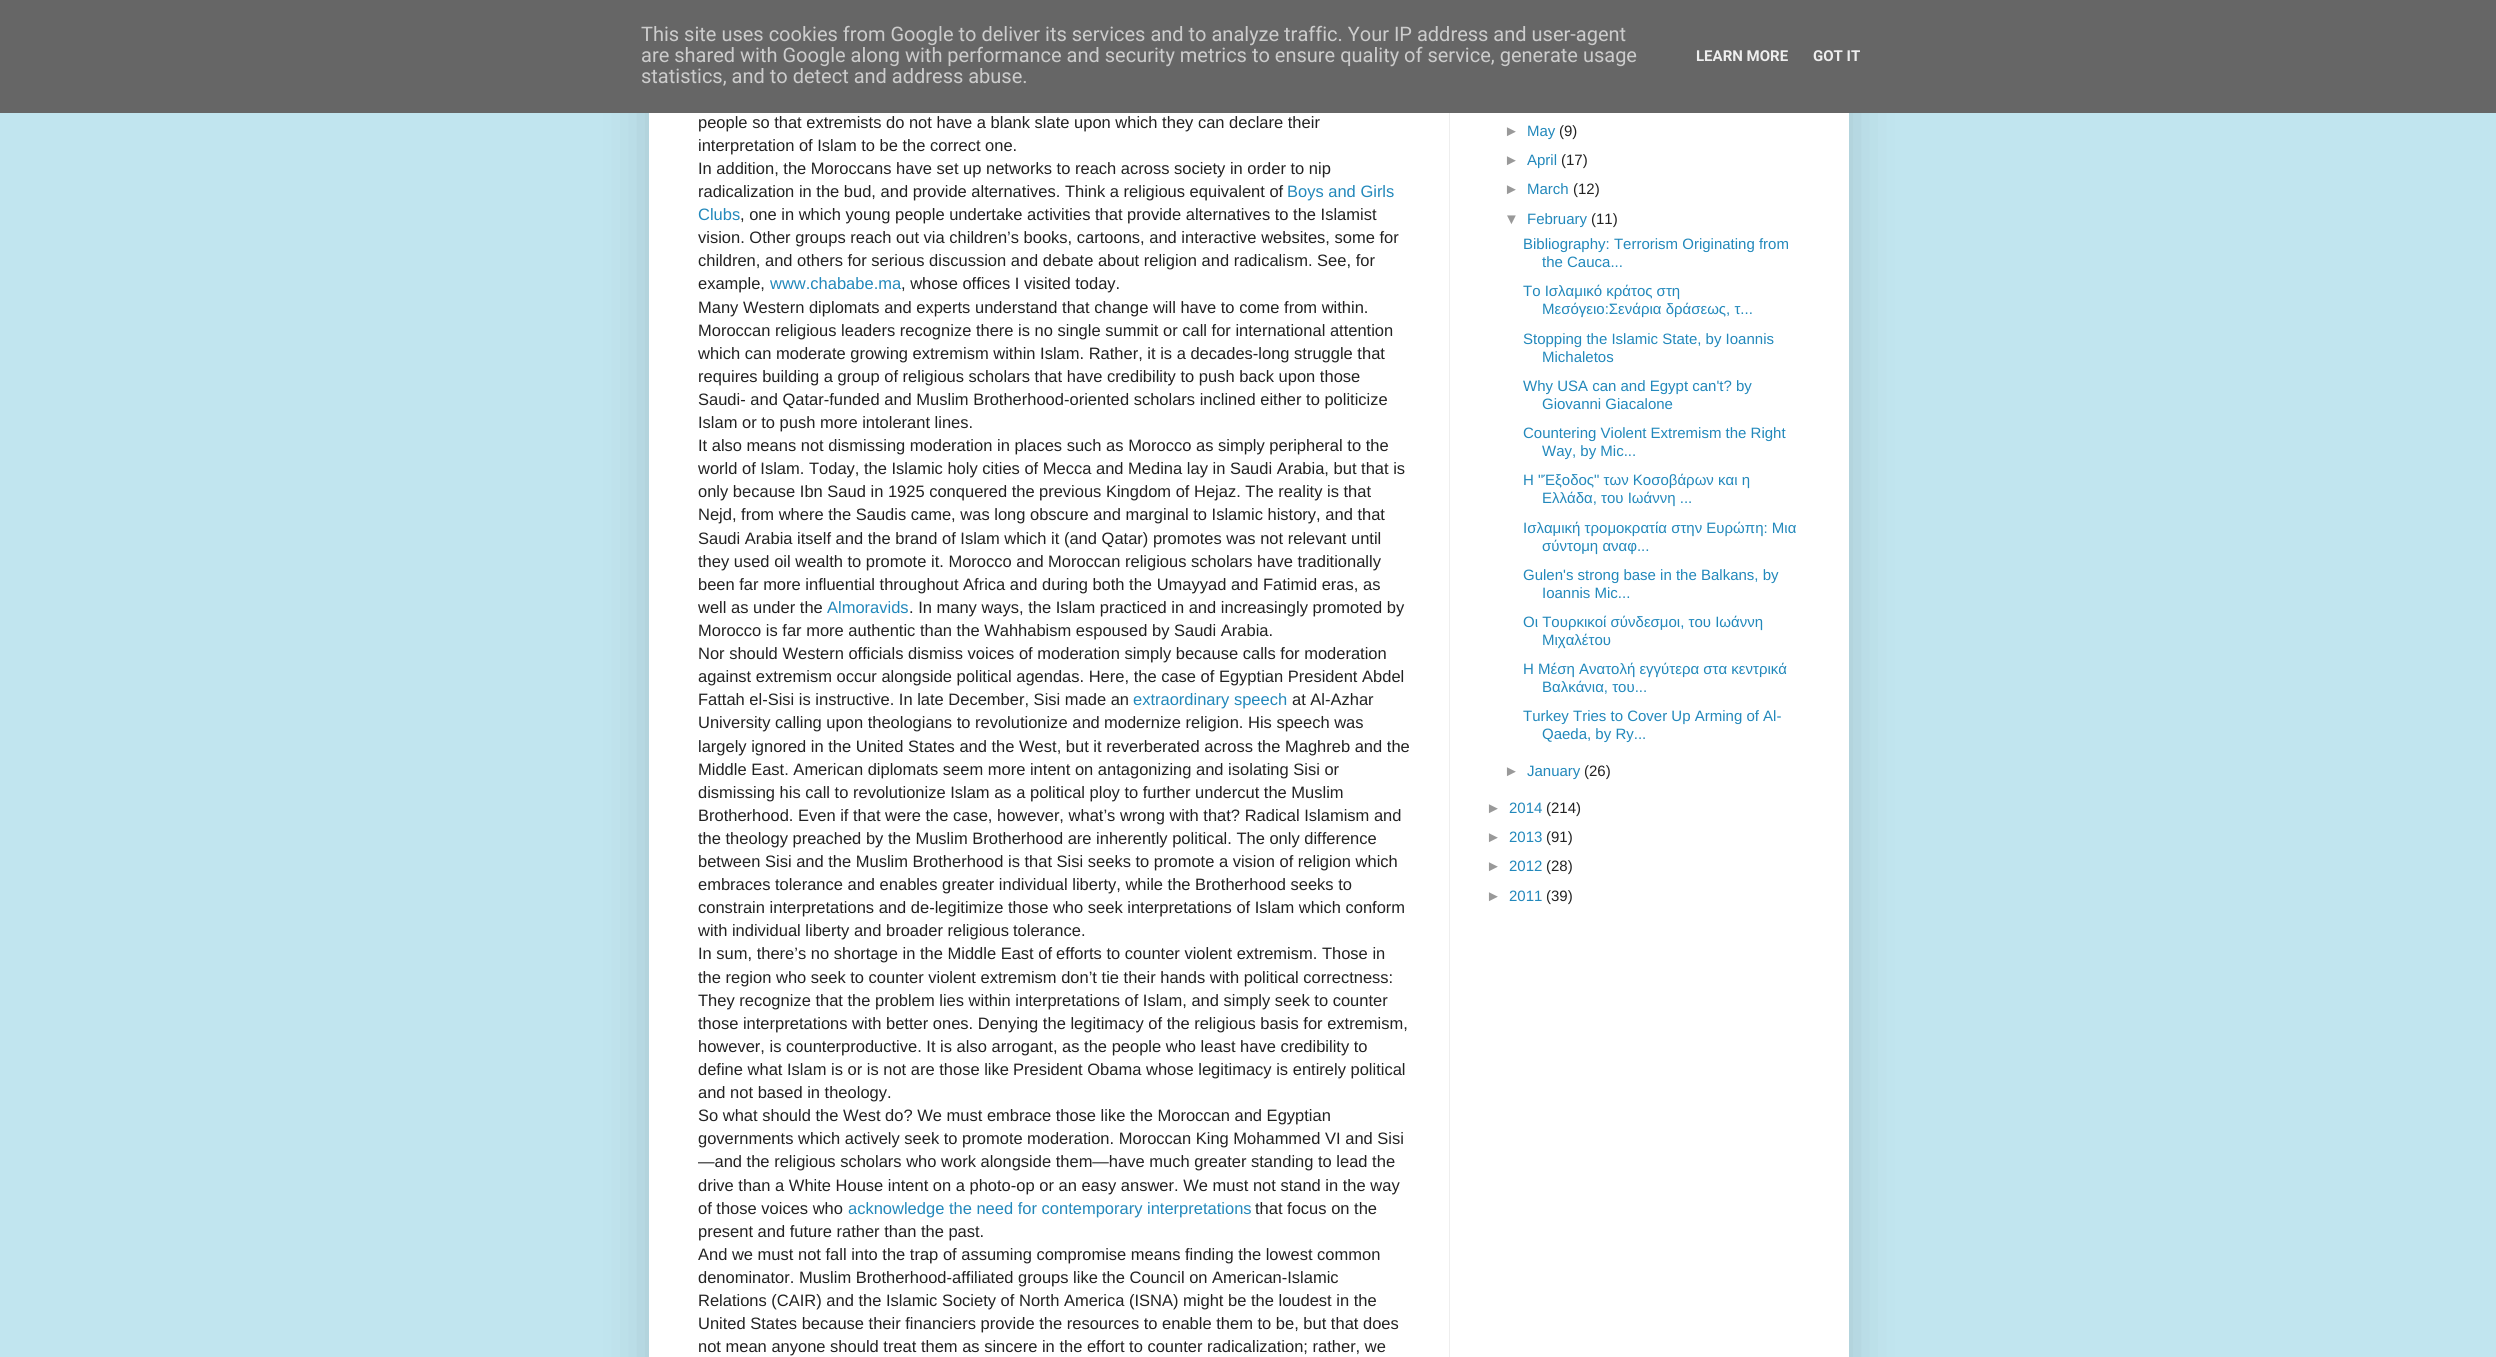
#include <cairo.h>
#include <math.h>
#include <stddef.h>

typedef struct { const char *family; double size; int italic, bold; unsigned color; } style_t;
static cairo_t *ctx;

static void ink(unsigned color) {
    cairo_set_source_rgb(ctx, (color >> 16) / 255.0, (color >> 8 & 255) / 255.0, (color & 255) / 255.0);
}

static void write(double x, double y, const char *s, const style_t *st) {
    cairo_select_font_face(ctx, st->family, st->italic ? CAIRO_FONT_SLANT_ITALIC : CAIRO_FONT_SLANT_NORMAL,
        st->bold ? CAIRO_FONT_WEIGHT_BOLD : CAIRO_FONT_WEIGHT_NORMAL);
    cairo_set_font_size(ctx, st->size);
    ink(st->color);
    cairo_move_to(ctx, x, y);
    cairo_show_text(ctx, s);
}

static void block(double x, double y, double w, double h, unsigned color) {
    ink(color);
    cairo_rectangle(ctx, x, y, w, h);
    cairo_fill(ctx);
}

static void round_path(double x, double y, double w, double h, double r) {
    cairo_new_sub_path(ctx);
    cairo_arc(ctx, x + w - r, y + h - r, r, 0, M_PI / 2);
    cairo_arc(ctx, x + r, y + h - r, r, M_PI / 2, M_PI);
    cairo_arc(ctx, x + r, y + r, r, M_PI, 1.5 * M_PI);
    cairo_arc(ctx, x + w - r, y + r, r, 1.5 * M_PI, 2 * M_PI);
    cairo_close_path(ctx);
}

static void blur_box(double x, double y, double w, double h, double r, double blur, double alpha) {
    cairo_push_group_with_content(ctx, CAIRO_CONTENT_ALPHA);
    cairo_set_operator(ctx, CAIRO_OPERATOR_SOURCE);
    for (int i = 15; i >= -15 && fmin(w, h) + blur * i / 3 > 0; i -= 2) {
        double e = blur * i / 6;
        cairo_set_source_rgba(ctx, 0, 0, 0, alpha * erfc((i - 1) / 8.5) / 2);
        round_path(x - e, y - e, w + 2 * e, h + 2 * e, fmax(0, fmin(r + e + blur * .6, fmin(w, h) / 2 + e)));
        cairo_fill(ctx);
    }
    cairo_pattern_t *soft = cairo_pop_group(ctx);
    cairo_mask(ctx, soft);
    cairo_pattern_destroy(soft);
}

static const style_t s1 = {"Roboto", 20, 0, 0, 0xcccccc};
static const style_t s2 = {"Roboto", 15, 0, 1, 0xeeeeee};
static const style_t s3 = {"Liberation Sans", 16.5, 0, 0, 0x222222};
static const style_t s4 = {"Liberation Sans", 16.5, 0, 0, 0x2288bb};
static const style_t s5 = {"Liberation Sans", 15, 0, 0, 0x999999};
static const style_t s6 = {"Liberation Sans", 15, 0, 0, 0x2288bb};
static const style_t s7 = {"Liberation Sans", 15, 0, 0, 0x222222};

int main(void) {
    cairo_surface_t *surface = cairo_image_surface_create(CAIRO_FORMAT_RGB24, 2496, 1357);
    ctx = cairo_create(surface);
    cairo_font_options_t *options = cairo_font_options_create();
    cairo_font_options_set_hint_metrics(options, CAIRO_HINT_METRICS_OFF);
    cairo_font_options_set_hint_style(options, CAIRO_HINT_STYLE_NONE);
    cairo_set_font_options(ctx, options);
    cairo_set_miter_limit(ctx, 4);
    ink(0xc1e5ef);
    cairo_paint(ctx);
    ink(0x000000);
    blur_box(649, -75, 1200, 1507, 0, 25, 0.15);
    block(0, 0, 2496, 113, 0x666666);
    write(641, 41, "This site uses cookies from Google to deliver its services and to analyze traffic. Your IP address and user-agent", &s1);
    write(641, 62, "are shared with Google along with performance and security metrics to ensure quality of service, generate usage", &s1);
    write(641, 83, "statistics, and to detect and address abuse.", &s1);
    write(1696, 61, "LEARN MORE", &s2);
    write(1813, 61, "GOT IT", &s2);
    block(649, 113, 1200, 1244, 0xffffff);
    block(1449, 113, 1, 1244, 0xeeeeee);
    write(698, 128, "people so that extremists do not have a blank slate upon which they can declare their", &s3);
    write(698, 151, "interpretation of Islam to be the correct one.", &s3);
    write(698, 174, "In addition, the Moroccans have set up networks to reach across society in order to nip", &s3);
    write(698, 197, "radicalization in the bud, and provide alternatives. Think a religious equivalent of", &s3);
    write(1287, 197, "Boys and Girls", &s4);
    write(698, 220, "Clubs", &s4);
    write(740, 220, ", one in which young people undertake activities that provide alternatives to the Islamist", &s3);
    write(698, 243, "vision. Other groups reach out via children’s books, cartoons, and interactive websites, some for", &s3);
    write(698, 266, "children, and others for serious discussion and debate about religion and radicalism. See, for", &s3);
    write(698, 289, "example,", &s3);
    write(770, 289, "www.chababe.ma", &s4);
    write(901, 289, ", whose offices I visited today.", &s3);
    write(698, 313, "Many Western diplomats and experts understand that change will have to come from within.", &s3);
    write(698, 336, "Moroccan religious leaders recognize there is no single summit or call for international attention", &s3);
    write(698, 359, "which can moderate growing extremism within Islam. Rather, it is a decades-long struggle that", &s3);
    write(698, 382, "requires building a group of religious scholars that have credibility to push back upon those", &s3);
    write(698, 405, "Saudi- and Qatar-funded and Muslim Brotherhood-oriented scholars inclined either to politicize", &s3);
    write(698, 428, "Islam or to push more intolerant lines.", &s3);
    write(698, 451, "It also means not dismissing moderation in places such as Morocco as simply peripheral to the", &s3);
    write(698, 474, "world of Islam. Today, the Islamic holy cities of Mecca and Medina lay in Saudi Arabia, but that is", &s3);
    write(698, 497, "only because Ibn Saud in 1925 conquered the", &s3);
    write(1039, 497, "previous Kingdom of Hejaz. The reality is that", &s3);
    write(698, 520, "Nejd, from where the Saudis came, was long obscure and marginal to Islamic history, and that", &s3);
    write(698, 544, "Saudi Arabia itself and the brand of Islam which it (and Qatar) promotes was not relevant until", &s3);
    write(698, 567, "they used oil wealth to promote it. Morocco and", &s3);
    write(1048, 567, "Moroccan religious scholars have traditionally", &s3);
    write(698, 590, "been far more influential throughout Africa and during both the Umayyad and Fatimid eras, as", &s3);
    write(698, 613, "well as under the", &s3);
    write(827, 613, "Almoravids", &s4);
    write(909, 613, ". In many ways, the Islam practiced in and increasingly promoted by", &s3);
    write(698, 636, "Morocco is far more authentic than the Wahhabism espoused by Saudi Arabia.", &s3);
    write(698, 659, "Nor should Western officials dismiss voices of moderation simply because calls for moderation", &s3);
    write(698, 682, "against extremism occur alongside political agendas. Here, the case of Egyptian President Abdel", &s3);
    write(698, 705, "Fattah el-Sisi is instructive. In late December, Sisi made an", &s3);
    write(1133, 705, "extraordinary speech", &s4);
    write(1292, 705, "at Al-Azhar", &s3);
    write(698, 728, "University calling upon theologians to revolutionize and", &s3);
    write(1104, 728, "modernize religion. His speech was", &s3);
    write(698, 752, "largely ignored in the United States and the West, but it reverberated across the Maghreb and the", &s3);
    write(698, 775, "Middle East. American diplomats seem more intent on antagonizing and isolating Sisi or", &s3);
    write(698, 798, "dismissing his call to revolutionize Islam as a political ploy to further undercut the Muslim", &s3);
    write(698, 821, "Brotherhood. Even if that were the case, however, what’s wrong with that? Radical Islamism and", &s3);
    write(698, 844, "the theology preached by the Muslim Brotherhood are inherently political. The only difference", &s3);
    write(698, 867, "between Sisi and the Muslim Brotherhood is that Sisi seeks to promote a vision of religion which", &s3);
    write(698, 890, "embraces tolerance and enables greater individual liberty, while the Brotherhood seeks to", &s3);
    write(698, 913, "constrain interpretations and de-legitimize those who seek interpretations of Islam which conform", &s3);
    write(698, 936, "with individual liberty and broader religious", &s3);
    write(1013, 936, "tolerance.", &s3);
    write(698, 959, "In sum, there’s no shortage in the Middle East of", &s3);
    write(1056, 959, "efforts to counter violent extremism. Those in", &s3);
    write(698, 983, "the region who seek to counter violent extremism don’t tie their hands with political correctness:", &s3);
    write(698, 1006, "They recognize that the problem lies within interpretations of Islam, and simply seek to counter", &s3);
    write(698, 1029, "those interpretations with better ones. Denying the legitimacy of the religious basis for extremism,", &s3);
    write(698, 1052, "however, is counterproductive. It is also arrogant, as the people who least have credibility to", &s3);
    write(698, 1075, "define what Islam is or is not are those like", &s3);
    write(1013, 1075, "President Obama whose legitimacy is entirely political", &s3);
    write(698, 1098, "and not based in theology.", &s3);
    write(698, 1121, "So what should the West do? We must embrace those like the Moroccan and Egyptian", &s3);
    write(698, 1144, "governments which actively seek to promote", &s3);
    write(1027, 1144, "moderation. Moroccan King Mohammed VI and Sisi", &s3);
    write(698, 1167, "—and the religious scholars who work alongside them—have much greater standing to lead the", &s3);
    write(698, 1191, "drive than a White House intent on a photo-op or an easy answer. We must not stand in the way", &s3);
    write(698, 1214, "of those voices who", &s3);
    write(848, 1214, "acknowledge the need for contemporary interpretations", &s4);
    write(1255, 1214, "that focus on the", &s3);
    write(698, 1237, "present and future rather than the past.", &s3);
    write(698, 1260, "And we must not fall into the trap of assuming compromise means finding the lowest common", &s3);
    write(698, 1283, "denominator. Muslim Brotherhood-affiliated groups like", &s3);
    write(1102, 1283, "the Council on American-Islamic", &s3);
    write(698, 1306, "Relations (CAIR) and the Islamic Society of North America (ISNA) might be the loudest in the", &s3);
    write(698, 1329, "United States because their financiers provide the resources to enable them to be, but that does", &s3);
    write(698, 1352, "not mean anyone should treat them as sincere in the effort to counter radicalization; rather, we", &s3);
    write(1504, 136, "►", &s5);
    write(1527, 136, "May", &s6);
    write(1559, 136, "(9)", &s7);
    write(1504, 165, "►", &s5);
    write(1527, 165, "April", &s6);
    write(1561, 165, "(17)", &s7);
    write(1504, 194, "►", &s5);
    write(1527, 194, "March", &s6);
    write(1573, 194, "(12)", &s7);
    write(1504, 224, "▼", &s5);
    write(1527, 224, "February", &s6);
    write(1591, 224, "(11)", &s7);
    write(1523, 249, "Bibliography: Terrorism Originating from", &s6);
    write(1542, 267, "the Cauca...", &s6);
    write(1523, 296, "Το Ισλαμικό κράτος στη", &s6);
    write(1542, 314, "Μεσόγειο:Σενάρια δράσεως, τ...", &s6);
    write(1523, 344, "Stopping the Islamic State, by Ioannis", &s6);
    write(1542, 362, "Michaletos", &s6);
    write(1523, 391, "Why USA can and Egypt can't? by", &s6);
    write(1542, 409, "Giovanni Giacalone", &s6);
    write(1523, 438, "Countering Violent Extremism the Right", &s6);
    write(1542, 456, "Way, by Mic...", &s6);
    write(1523, 485, "Η \"Έξοδος\" των Κοσοβάρων και η", &s6);
    write(1542, 503, "Ελλάδα, του Ιωάννη ...", &s6);
    write(1523, 533, "Ισλαμική τρομοκρατία στην Ευρώπη: Mια", &s6);
    write(1542, 551, "σύντομη αναφ...", &s6);
    write(1523, 580, "Gulen's strong base in the Balkans, by", &s6);
    write(1542, 598, "Ioannis Mic...", &s6);
    write(1523, 627, "Οι Τουρκικοί σύνδεσμοι, του Ιωάννη", &s6);
    write(1542, 645, "Μιχαλέτου", &s6);
    write(1523, 674, "Η Μέση Ανατολή εγγύτερα στα κεντρικά", &s6);
    write(1542, 692, "Βαλκάνια, του...", &s6);
    write(1523, 721, "Turkey Tries to Cover Up Arming of Al-", &s6);
    write(1542, 739, "Qaeda, by Ry...", &s6);
    write(1504, 776, "►", &s5);
    write(1527, 776, "January", &s6);
    write(1584, 776, "(26)", &s7);
    write(1486, 813, "►", &s5);
    write(1509, 813, "2014", &s6);
    write(1546, 813, "(214)", &s7);
    write(1486, 842, "►", &s5);
    write(1509, 842, "2013", &s6);
    write(1546, 842, "(91)", &s7);
    write(1486, 871, "►", &s5);
    write(1509, 871, "2012", &s6);
    write(1546, 871, "(28)", &s7);
    write(1486, 901, "►", &s5);
    write(1509, 901, "2011", &s6);
    write(1546, 901, "(39)", &s7);
    cairo_surface_write_to_png(surface, "screenshot.png");
    cairo_font_options_destroy(options);
    cairo_destroy(ctx);
    cairo_surface_destroy(surface);
    return 0;
}
